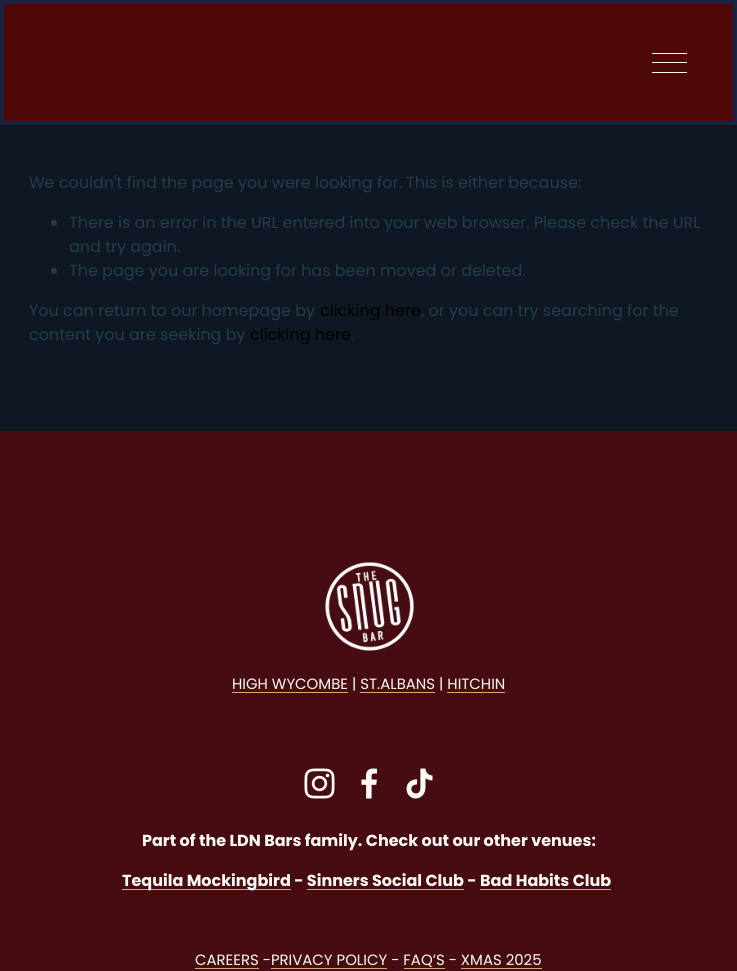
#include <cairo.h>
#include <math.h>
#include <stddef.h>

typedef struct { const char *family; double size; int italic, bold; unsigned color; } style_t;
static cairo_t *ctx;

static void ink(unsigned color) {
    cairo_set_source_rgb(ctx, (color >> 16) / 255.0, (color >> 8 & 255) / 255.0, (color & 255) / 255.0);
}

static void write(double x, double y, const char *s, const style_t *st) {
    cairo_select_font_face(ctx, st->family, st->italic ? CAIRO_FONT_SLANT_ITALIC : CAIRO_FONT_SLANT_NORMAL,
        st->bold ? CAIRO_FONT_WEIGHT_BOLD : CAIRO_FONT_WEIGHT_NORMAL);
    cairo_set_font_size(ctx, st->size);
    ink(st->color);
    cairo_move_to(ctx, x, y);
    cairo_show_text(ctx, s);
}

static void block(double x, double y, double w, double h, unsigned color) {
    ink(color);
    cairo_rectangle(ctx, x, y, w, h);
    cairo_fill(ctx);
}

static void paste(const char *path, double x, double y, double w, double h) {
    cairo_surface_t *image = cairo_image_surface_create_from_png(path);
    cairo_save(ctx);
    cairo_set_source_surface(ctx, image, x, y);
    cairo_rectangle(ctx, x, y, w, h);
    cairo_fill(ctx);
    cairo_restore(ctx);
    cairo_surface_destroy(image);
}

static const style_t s1 = {"Poppins", 16, 0, 0, 0x213c4e};
static const style_t s2 = {"Poppins", 16, 0, 0, 0x000000};
static const style_t s3 = {"Poppins", 14.9, 0, 0, 0xfcfbf7};
static const style_t s4 = {"Poppins", 16, 0, 1, 0xfcfbf7};

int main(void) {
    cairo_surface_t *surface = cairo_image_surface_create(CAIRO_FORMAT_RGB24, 737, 971);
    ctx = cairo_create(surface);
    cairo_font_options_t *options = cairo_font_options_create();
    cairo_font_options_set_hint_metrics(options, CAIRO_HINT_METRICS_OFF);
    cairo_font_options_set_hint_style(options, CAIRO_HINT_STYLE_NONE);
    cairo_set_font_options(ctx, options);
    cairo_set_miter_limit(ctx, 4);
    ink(0x0f1723);
    cairo_paint(ctx);
    ink(0x4e0808);
    cairo_rectangle(ctx, 2, 2, 733, 121);
    cairo_fill_preserve(ctx);
    ink(0x182241);
    cairo_set_line_width(ctx, 4);
    cairo_stroke(ctx);
    block(652, 53, 35, 1, 0xfefcfb);
    block(652, 62, 35, 1, 0xfefcfb);
    block(652, 72, 35, 1, 0xfefcfb);
    write(29, 188, "We couldn't find the page you were looking for. This is either because:", &s1);
    cairo_new_path(ctx);
    cairo_arc(ctx, 54, 223, 3, 0, 2 * M_PI);
    cairo_fill(ctx);
    write(69, 228, "There is an error in the URL entered into your web browser. Please check the URL", &s1);
    write(69, 252, "and try again.", &s1);
    cairo_new_path(ctx);
    cairo_arc(ctx, 54, 271, 3, 0, 2 * M_PI);
    cairo_fill(ctx);
    write(69, 276, "The page you are looking for has been moved or deleted.", &s1);
    write(29, 316, "You can return to our homepage by", &s1);
    write(320, 316, "clicking here", &s2);
    write(421, 316, ", or you can try searching for the", &s1);
    write(29, 340, "content you are seeking by", &s1);
    write(250, 340, "clicking here", &s2);
    write(351, 340, ".", &s1);
    block(0, 431, 737, 540, 0x470c11);
    paste("pic1.png", 325, 562, 89, 89);
    write(232, 689, "HIGH WYCOMBE | ST.ALBANS | HITCHIN", &s3);
    block(232, 692, 116, 1, 0xdea868);
    block(360, 692, 75, 1, 0xdea868);
    block(447, 692, 58, 1, 0xdea868);
    paste("pic2.png", 304, 768, 31, 31);
    paste("pic3.png", 361, 768, 16, 31);
    paste("pic4.png", 406, 768, 27, 31);
    write(142, 846, "Part of the LDN Bars family. Check out our other venues:", &s4);
    block(122, 889, 169, 1, 0xdea868);
    write(122, 886, "Tequila Mockingbird - Sinners Social Club - Bad Habits Club", &s4);
    block(307, 889, 157, 1, 0xdea868);
    block(480, 889, 131, 1, 0xdea868);
    write(195, 965, "CAREERS -PRIVACY POLICY - FAQ’S - XMAS 2025", &s3);
    block(195, 968, 64, 1, 0xdea868);
    block(271, 968, 116, 1, 0xdea868);
    block(404, 968, 41, 1, 0xdea868);
    block(461, 968, 81, 1, 0xdea868);
    cairo_surface_write_to_png(surface, "screenshot.png");
    cairo_font_options_destroy(options);
    cairo_destroy(ctx);
    cairo_surface_destroy(surface);
    return 0;
}
